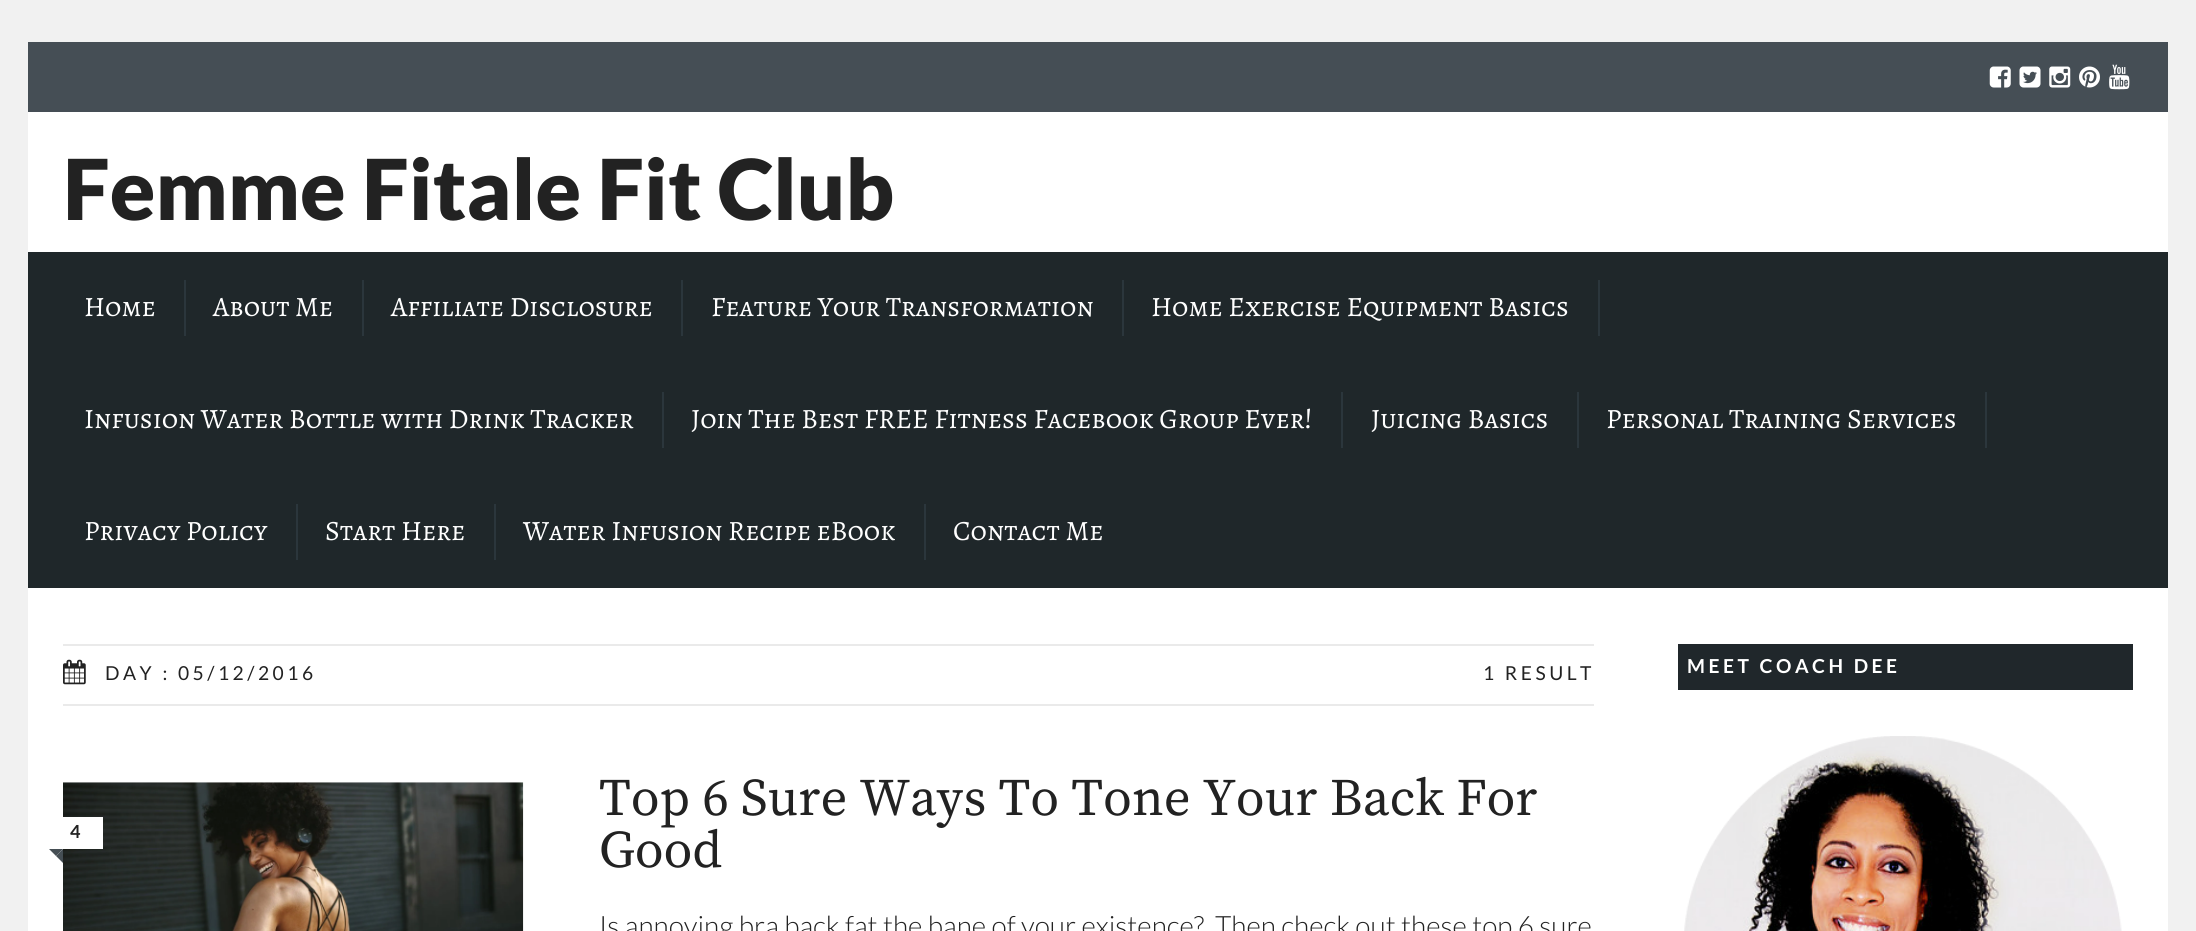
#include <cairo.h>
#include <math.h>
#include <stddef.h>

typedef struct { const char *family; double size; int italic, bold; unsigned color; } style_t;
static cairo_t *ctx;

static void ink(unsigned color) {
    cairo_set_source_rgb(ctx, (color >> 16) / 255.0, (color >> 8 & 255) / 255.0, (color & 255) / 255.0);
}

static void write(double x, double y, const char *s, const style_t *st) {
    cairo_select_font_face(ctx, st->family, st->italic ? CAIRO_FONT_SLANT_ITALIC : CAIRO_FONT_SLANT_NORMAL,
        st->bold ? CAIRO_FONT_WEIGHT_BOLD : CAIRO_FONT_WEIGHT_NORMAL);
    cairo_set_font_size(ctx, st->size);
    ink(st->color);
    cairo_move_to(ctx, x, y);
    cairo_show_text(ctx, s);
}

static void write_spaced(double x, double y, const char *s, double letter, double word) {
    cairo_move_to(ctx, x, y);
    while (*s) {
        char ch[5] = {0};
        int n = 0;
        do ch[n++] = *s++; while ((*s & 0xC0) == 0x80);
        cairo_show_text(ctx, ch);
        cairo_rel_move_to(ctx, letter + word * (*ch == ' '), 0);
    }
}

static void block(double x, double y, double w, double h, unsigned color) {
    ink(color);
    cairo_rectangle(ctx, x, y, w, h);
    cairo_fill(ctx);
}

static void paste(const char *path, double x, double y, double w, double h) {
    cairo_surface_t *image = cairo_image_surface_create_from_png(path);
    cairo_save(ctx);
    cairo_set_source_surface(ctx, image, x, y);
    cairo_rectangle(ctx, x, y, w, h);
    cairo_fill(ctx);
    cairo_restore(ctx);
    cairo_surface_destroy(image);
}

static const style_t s1 = {"Lato Black", 84, 0, 0, 0x222222};
static const style_t s2 = {"Alegreya SC", 28, 0, 0, 0xffffff};
static const style_t s3 = {"Lato", 18, 0, 1, 0x222222};
static const style_t s4 = {"Source Serif Pro", 52.5, 0, 0, 0x222222};
static const style_t s5 = {"Lato Light", 28, 0, 0, 0x222222};

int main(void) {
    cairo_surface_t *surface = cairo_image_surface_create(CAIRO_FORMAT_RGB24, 2196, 931);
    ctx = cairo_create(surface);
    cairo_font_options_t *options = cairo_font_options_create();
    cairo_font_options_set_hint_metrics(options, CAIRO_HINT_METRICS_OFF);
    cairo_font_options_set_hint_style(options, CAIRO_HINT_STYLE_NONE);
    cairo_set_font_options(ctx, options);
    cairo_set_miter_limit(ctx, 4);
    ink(0xf1f1f1);
    cairo_paint(ctx);
    block(28, 42, 2140, 70, 0x454e55);
    paste("pic1.png", 1989, 66, 22, 22);
    paste("pic2.png", 2019, 66, 22, 22);
    paste("pic3.png", 2049, 66, 22, 22);
    paste("pic4.png", 2079, 66, 21, 22);
    paste("pic5.png", 2109, 64, 21, 26);
    block(28, 112, 2140, 140, 0xffffff);
    write(63, 220, "Femme Fitale Fit Club", &s1);
    block(28, 252, 2140, 336, 0x1f272a);
    block(184, 280, 2, 56, 0x2b363c);
    write(84, 316, "Home", &s2);
    block(362, 280, 2, 56, 0x2b363c);
    write(213, 316, "About Me", &s2);
    block(681, 280, 2, 56, 0x2b363c);
    write(391, 316, "Affiliate Disclosure", &s2);
    block(1122, 280, 2, 56, 0x2b363c);
    write(711, 316, "Feature Your Transformation", &s2);
    block(1598, 280, 2, 56, 0x2b363c);
    write(1151, 316, "Home Exercise Equipment Basics", &s2);
    block(662, 392, 2, 56, 0x2b363c);
    write(84, 428, "Infusion Water Bottle with Drink Tracker", &s2);
    block(1341, 392, 2, 56, 0x2b363c);
    write(691, 428, "Join The Best FREE Fitness Facebook Group Ever!", &s2);
    block(1577, 392, 2, 56, 0x2b363c);
    write(1371, 428, "Juicing Basics", &s2);
    block(1985, 392, 2, 56, 0x2b363c);
    write(1606, 428, "Personal Training Services", &s2);
    block(296, 504, 2, 56, 0x2b363c);
    write(84, 540, "Privacy Policy", &s2);
    block(494, 504, 2, 56, 0x2b363c);
    write(325, 540, "Start Here", &s2);
    block(924, 504, 2, 56, 0x2b363c);
    write(523, 540, "Water Infusion Recipe eBook", &s2);
    write(953, 540, "Contact Me", &s2);
    block(28, 588, 2140, 343, 0xffffff);
    block(63, 644, 1531, 2, 0xeaeaea);
    block(63, 704, 1531, 2, 0xeaeaea);
    paste("pic6.png", 63, 659, 23, 26);
    cairo_select_font_face(ctx, "Lato", CAIRO_FONT_SLANT_NORMAL, CAIRO_FONT_WEIGHT_NORMAL);
    cairo_set_font_size(ctx, 19.25);
    ink(0x222222);
    write_spaced(105, 680, "DAY : 05/12/2016", 3.5, 0);
    write_spaced(1483, 680, "1 RESULT", 3.5, 0);
    paste("pic7.png", 63, 782, 461, 149);
    block(63, 817, 40, 32, 0xffffff);
    write(70, 838, "4", &s3);
    ink(0x454e54);
    cairo_new_path(ctx);
    cairo_move_to(ctx, 49, 849);
    cairo_line_to(ctx, 63, 849);
    cairo_line_to(ctx, 56, 856);
    cairo_close_path(ctx);
    cairo_fill(ctx);
    cairo_new_path(ctx);
    cairo_move_to(ctx, 63, 849);
    cairo_line_to(ctx, 63, 863);
    cairo_line_to(ctx, 56, 856);
    cairo_close_path(ctx);
    cairo_fill(ctx);
    write(599, 815, "Top 6 Sure Ways To Tone Your Back For", &s4);
    write(599, 867, "Good", &s4);
    write(599, 936, "Is annoying bra back fat the bane of your existence?  Then check out these top 6 sure", &s5);
    block(1678, 644, 455, 46, 0x20272b);
    cairo_select_font_face(ctx, "Lato", CAIRO_FONT_SLANT_NORMAL, CAIRO_FONT_WEIGHT_BOLD);
    cairo_set_font_size(ctx, 19.25);
    ink(0xffffff);
    write_spaced(1687, 673, "MEET COACH DEE", 3.5, 0);
    paste("pic8.png", 1684, 736, 438, 195);
    cairo_surface_write_to_png(surface, "screenshot.png");
    cairo_font_options_destroy(options);
    cairo_destroy(ctx);
    cairo_surface_destroy(surface);
    return 0;
}
